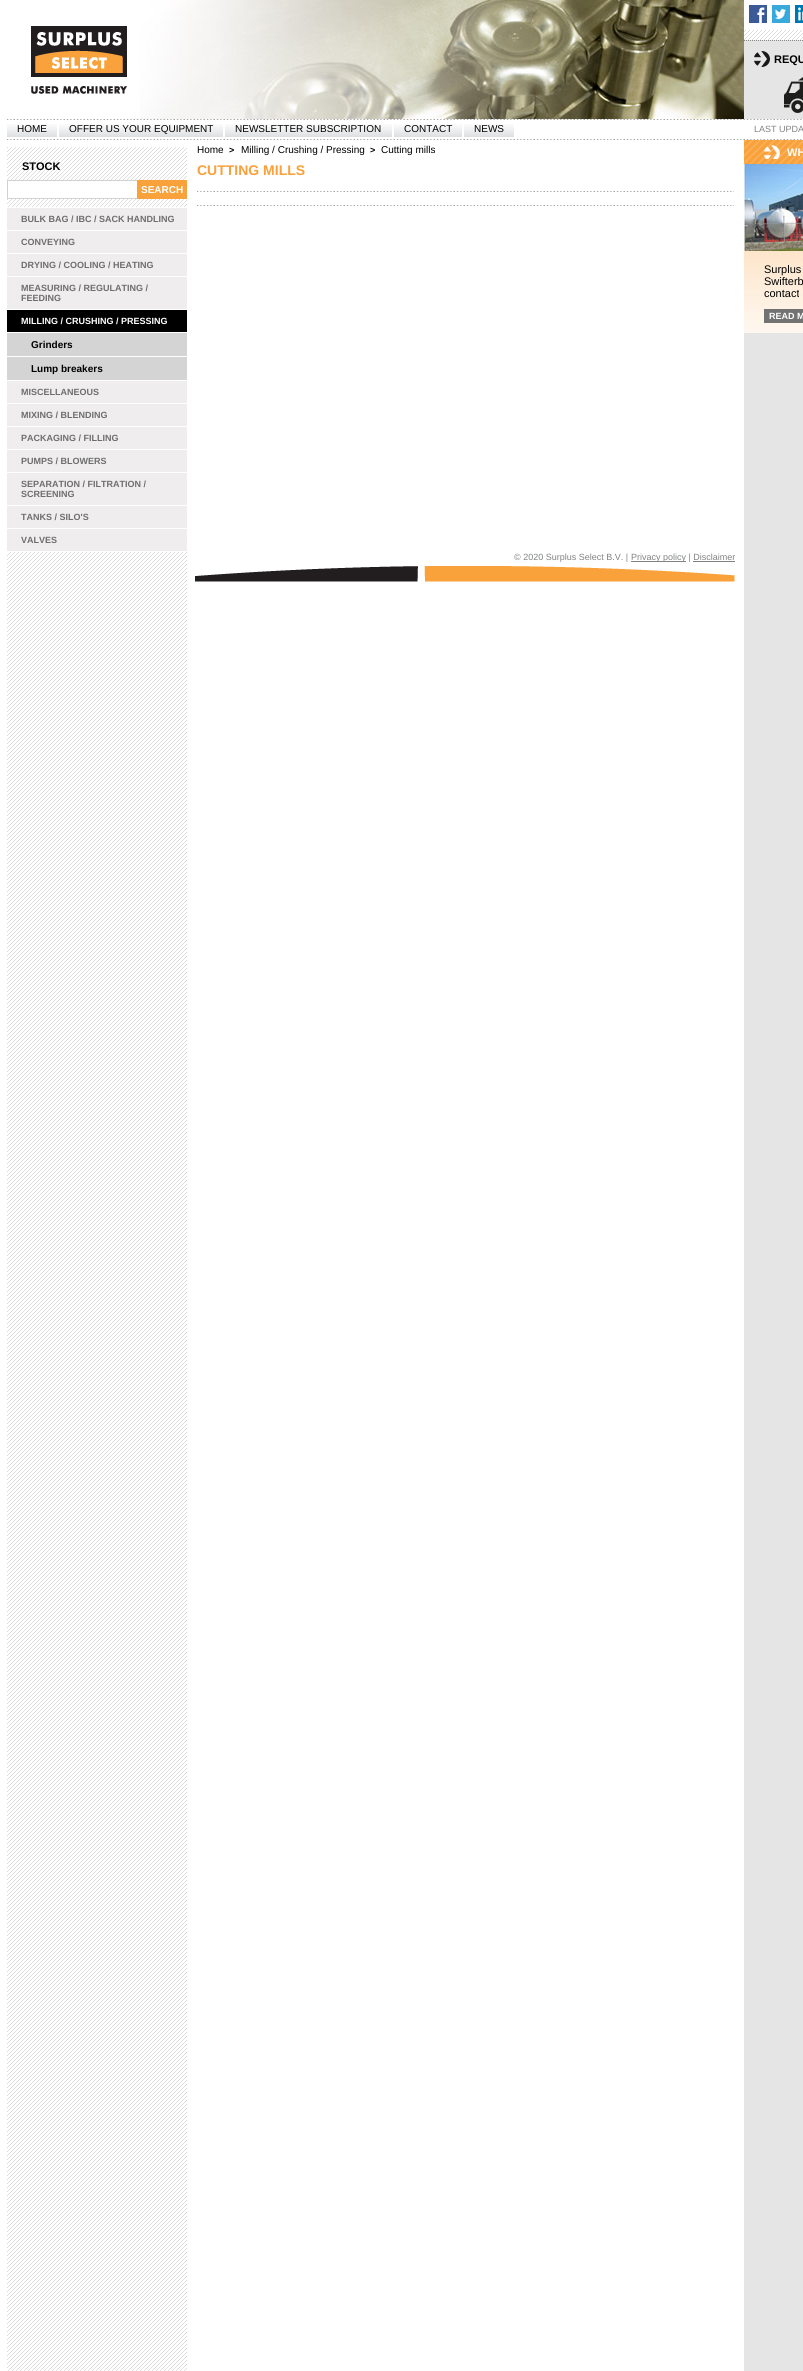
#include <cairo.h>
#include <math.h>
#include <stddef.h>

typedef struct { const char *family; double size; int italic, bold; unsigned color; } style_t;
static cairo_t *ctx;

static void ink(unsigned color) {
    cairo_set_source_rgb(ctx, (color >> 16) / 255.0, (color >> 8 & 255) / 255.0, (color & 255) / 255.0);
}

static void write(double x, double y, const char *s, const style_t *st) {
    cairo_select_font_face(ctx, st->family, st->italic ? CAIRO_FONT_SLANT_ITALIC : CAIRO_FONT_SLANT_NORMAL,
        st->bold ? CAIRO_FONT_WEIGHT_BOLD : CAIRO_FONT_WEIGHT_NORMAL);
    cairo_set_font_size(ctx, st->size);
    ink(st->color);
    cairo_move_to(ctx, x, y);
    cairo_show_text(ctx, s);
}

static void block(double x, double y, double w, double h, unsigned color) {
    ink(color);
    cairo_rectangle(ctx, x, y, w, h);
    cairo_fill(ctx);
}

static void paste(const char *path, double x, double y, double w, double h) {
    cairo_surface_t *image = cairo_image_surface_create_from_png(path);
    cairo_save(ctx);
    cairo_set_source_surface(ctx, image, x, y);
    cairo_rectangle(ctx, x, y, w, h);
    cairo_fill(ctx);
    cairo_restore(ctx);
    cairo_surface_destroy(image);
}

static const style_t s1 = {"Liberation Sans", 11, 0, 1, 0x000000};
static const style_t s2 = {"Liberation Sans", 10, 0, 0, 0x000000};
static const style_t s3 = {"Liberation Sans", 9, 0, 0, 0x808284};
static const style_t s4 = {"Liberation Sans", 10, 0, 1, 0xffffff};
static const style_t s5 = {"Liberation Sans", 9, 0, 1, 0x6e6e6e};
static const style_t s6 = {"Liberation Sans", 9, 0, 1, 0xffffff};
static const style_t s7 = {"Liberation Sans", 10, 0, 1, 0x000000};
static const style_t s8 = {"Liberation Sans", 9, 0, 1, 0x000000};
static const style_t s9 = {"Liberation Sans", 14, 0, 1, 0xf9a13b};
static const style_t s10 = {"Liberation Sans", 11, 0, 1, 0xffffff};
static const style_t s11 = {"Liberation Sans", 11, 0, 0, 0x000000};

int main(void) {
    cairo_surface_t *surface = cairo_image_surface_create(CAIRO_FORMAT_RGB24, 803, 2371);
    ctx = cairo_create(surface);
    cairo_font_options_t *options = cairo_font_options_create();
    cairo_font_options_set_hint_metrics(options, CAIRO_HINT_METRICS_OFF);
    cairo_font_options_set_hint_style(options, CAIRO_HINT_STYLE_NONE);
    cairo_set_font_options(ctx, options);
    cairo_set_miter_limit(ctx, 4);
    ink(0xffffff);
    cairo_paint(ctx);
    paste("pic1.png", 7, 140, 796, 2231);
    paste("pic2.png", 128, 0, 616, 119);
    paste("pic3.png", 31, 26, 96, 68);
    paste("pic4.png", 744, 30, 59, 10);
    paste("pic5.png", 749, 5, 18, 18);
    paste("pic6.png", 772, 5, 18, 18);
    paste("pic7.png", 795, 5, 8, 18);
    block(744, 40, 59, 79, 0xe5e5e5);
    cairo_new_path(ctx);
    cairo_move_to(ctx, 744, 40.5);
    cairo_line_to(ctx, 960, 40.5);
    ink(0x898787);
    cairo_set_line_width(ctx, 1);
    cairo_set_dash(ctx, (double[]){1, 1}, 2, 0);
    cairo_stroke(ctx);
    paste("pic8.png", 754, 51, 16, 16);
    write(774, 63, "REQU", &s1);
    paste("pic9.png", 784, 77, 19, 36);
    paste("pic10.png", 7, 119, 795, 1);
    paste("pic11.png", 7, 124, 50, 13);
    write(17, 132, "HOME", &s2);
    paste("pic12.png", 59, 124, 164, 13);
    write(69, 132, "OFFER US YOUR EQUIPMENT", &s2);
    paste("pic13.png", 225, 124, 167, 13);
    write(235, 132, "NEWSLETTER SUBSCRIPTION", &s2);
    paste("pic14.png", 394, 124, 68, 13);
    write(404, 132, "CONTACT", &s2);
    paste("pic11.png", 464, 124, 50, 13);
    write(474, 132, "NEWS", &s2);
    write(754, 132, "LAST UPDA", &s3);
    paste("pic15.png", 7, 139, 796, 1);
    block(7, 140, 180, 7, 0xffffff);
    write(22, 170, "STOCK", &s1);
    block(8, 181, 129, 17, 0xffffff);
    cairo_rectangle(ctx, 7.5, 180.5, 173, 18);
    ink(0xd1d1d1);
    cairo_set_dash(ctx, NULL, 0, 0);
    cairo_stroke(ctx);
    block(137, 180, 50, 19, 0xf9a13b);
    write(141, 193, "SEARCH", &s4);
    block(7, 551, 180, 1, 0xffffff);
    block(7, 207, 180, 1, 0xffffff);
    block(7, 208, 180, 22, 0xefeded);
    write(21, 222, "BULK BAG / IBC / SACK HANDLING", &s5);
    block(7, 230, 180, 1, 0xffffff);
    block(7, 231, 180, 22, 0xefeded);
    write(21, 245, "CONVEYING", &s5);
    block(7, 253, 180, 1, 0xffffff);
    block(7, 254, 180, 22, 0xefeded);
    write(21, 268, "DRYING / COOLING / HEATING", &s5);
    block(7, 276, 180, 1, 0xffffff);
    block(7, 277, 180, 32, 0xefeded);
    write(21, 291, "MEASURING / REGULATING /", &s5);
    write(21, 301, "FEEDING", &s5);
    block(7, 309, 180, 1, 0xffffff);
    block(7, 310, 180, 22, 0x000000);
    write(21, 324, "MILLING / CRUSHING / PRESSING", &s6);
    block(7, 332, 180, 1, 0xffffff);
    block(7, 333, 180, 23, 0xd5d4d4);
    write(31, 348, "Grinders", &s7);
    block(7, 356, 180, 1, 0xffffff);
    block(7, 357, 180, 23, 0xd5d4d4);
    write(31, 372, "Lump breakers", &s7);
    block(7, 380, 180, 1, 0xffffff);
    block(7, 381, 180, 22, 0xefeded);
    write(21, 395, "MISCELLANEOUS", &s5);
    block(7, 403, 180, 1, 0xffffff);
    block(7, 404, 180, 22, 0xefeded);
    write(21, 418, "MIXING / BLENDING", &s5);
    block(7, 426, 180, 1, 0xffffff);
    block(7, 427, 180, 22, 0xefeded);
    write(21, 441, "PACKAGING / FILLING", &s5);
    block(7, 449, 180, 1, 0xffffff);
    block(7, 450, 180, 22, 0xefeded);
    write(21, 464, "PUMPS / BLOWERS", &s5);
    block(7, 472, 180, 1, 0xffffff);
    block(7, 473, 180, 32, 0xefeded);
    write(21, 487, "SEPARATION / FILTRATION /", &s5);
    write(21, 497, "SCREENING", &s5);
    block(7, 505, 180, 1, 0xffffff);
    block(7, 506, 180, 22, 0xefeded);
    write(21, 520, "TANKS / SILO'S", &s5);
    block(7, 528, 180, 1, 0xffffff);
    block(7, 529, 180, 22, 0xefeded);
    write(21, 543, "VALVES", &s5);
    write(197, 153, "Home", &s2);
    write(229, 153, ">", &s8);
    write(241, 153, "Milling / Crushing / Pressing", &s2);
    write(370, 153, ">", &s8);
    write(381, 153, "Cutting mills", &s2);
    write(197, 175, "CUTTING MILLS", &s9);
    paste("pic16.png", 197, 191, 537, 1);
    paste("pic16.png", 197, 205, 537, 1);
    paste("pic17.png", 744, 251, 59, 82);
    paste("pic18.png", 744, 140, 59, 24);
    paste("pic19.png", 764, 145, 16, 14);
    write(787, 156, "WH", &s10);
    paste("pic20.png", 744, 164, 59, 87);
    write(764, 273, "Surplus", &s11);
    write(764, 285, "Swifterb", &s11);
    write(764, 297, "contact", &s11);
    block(764, 309, 39, 14, 0x727272);
    write(769, 319, "READ M", &s6);
    paste("pic21.png", 195, 566, 540, 16);
    write(514, 560, "© 2020 Surplus Select B.V. |", &s3);
    block(631, 561, 55, 1, 0x808284);
    write(631, 560, "Privacy policy | Disclaimer", &s3);
    block(693, 561, 42, 1, 0x808284);
    cairo_surface_write_to_png(surface, "screenshot.png");
    cairo_font_options_destroy(options);
    cairo_destroy(ctx);
    cairo_surface_destroy(surface);
    return 0;
}
